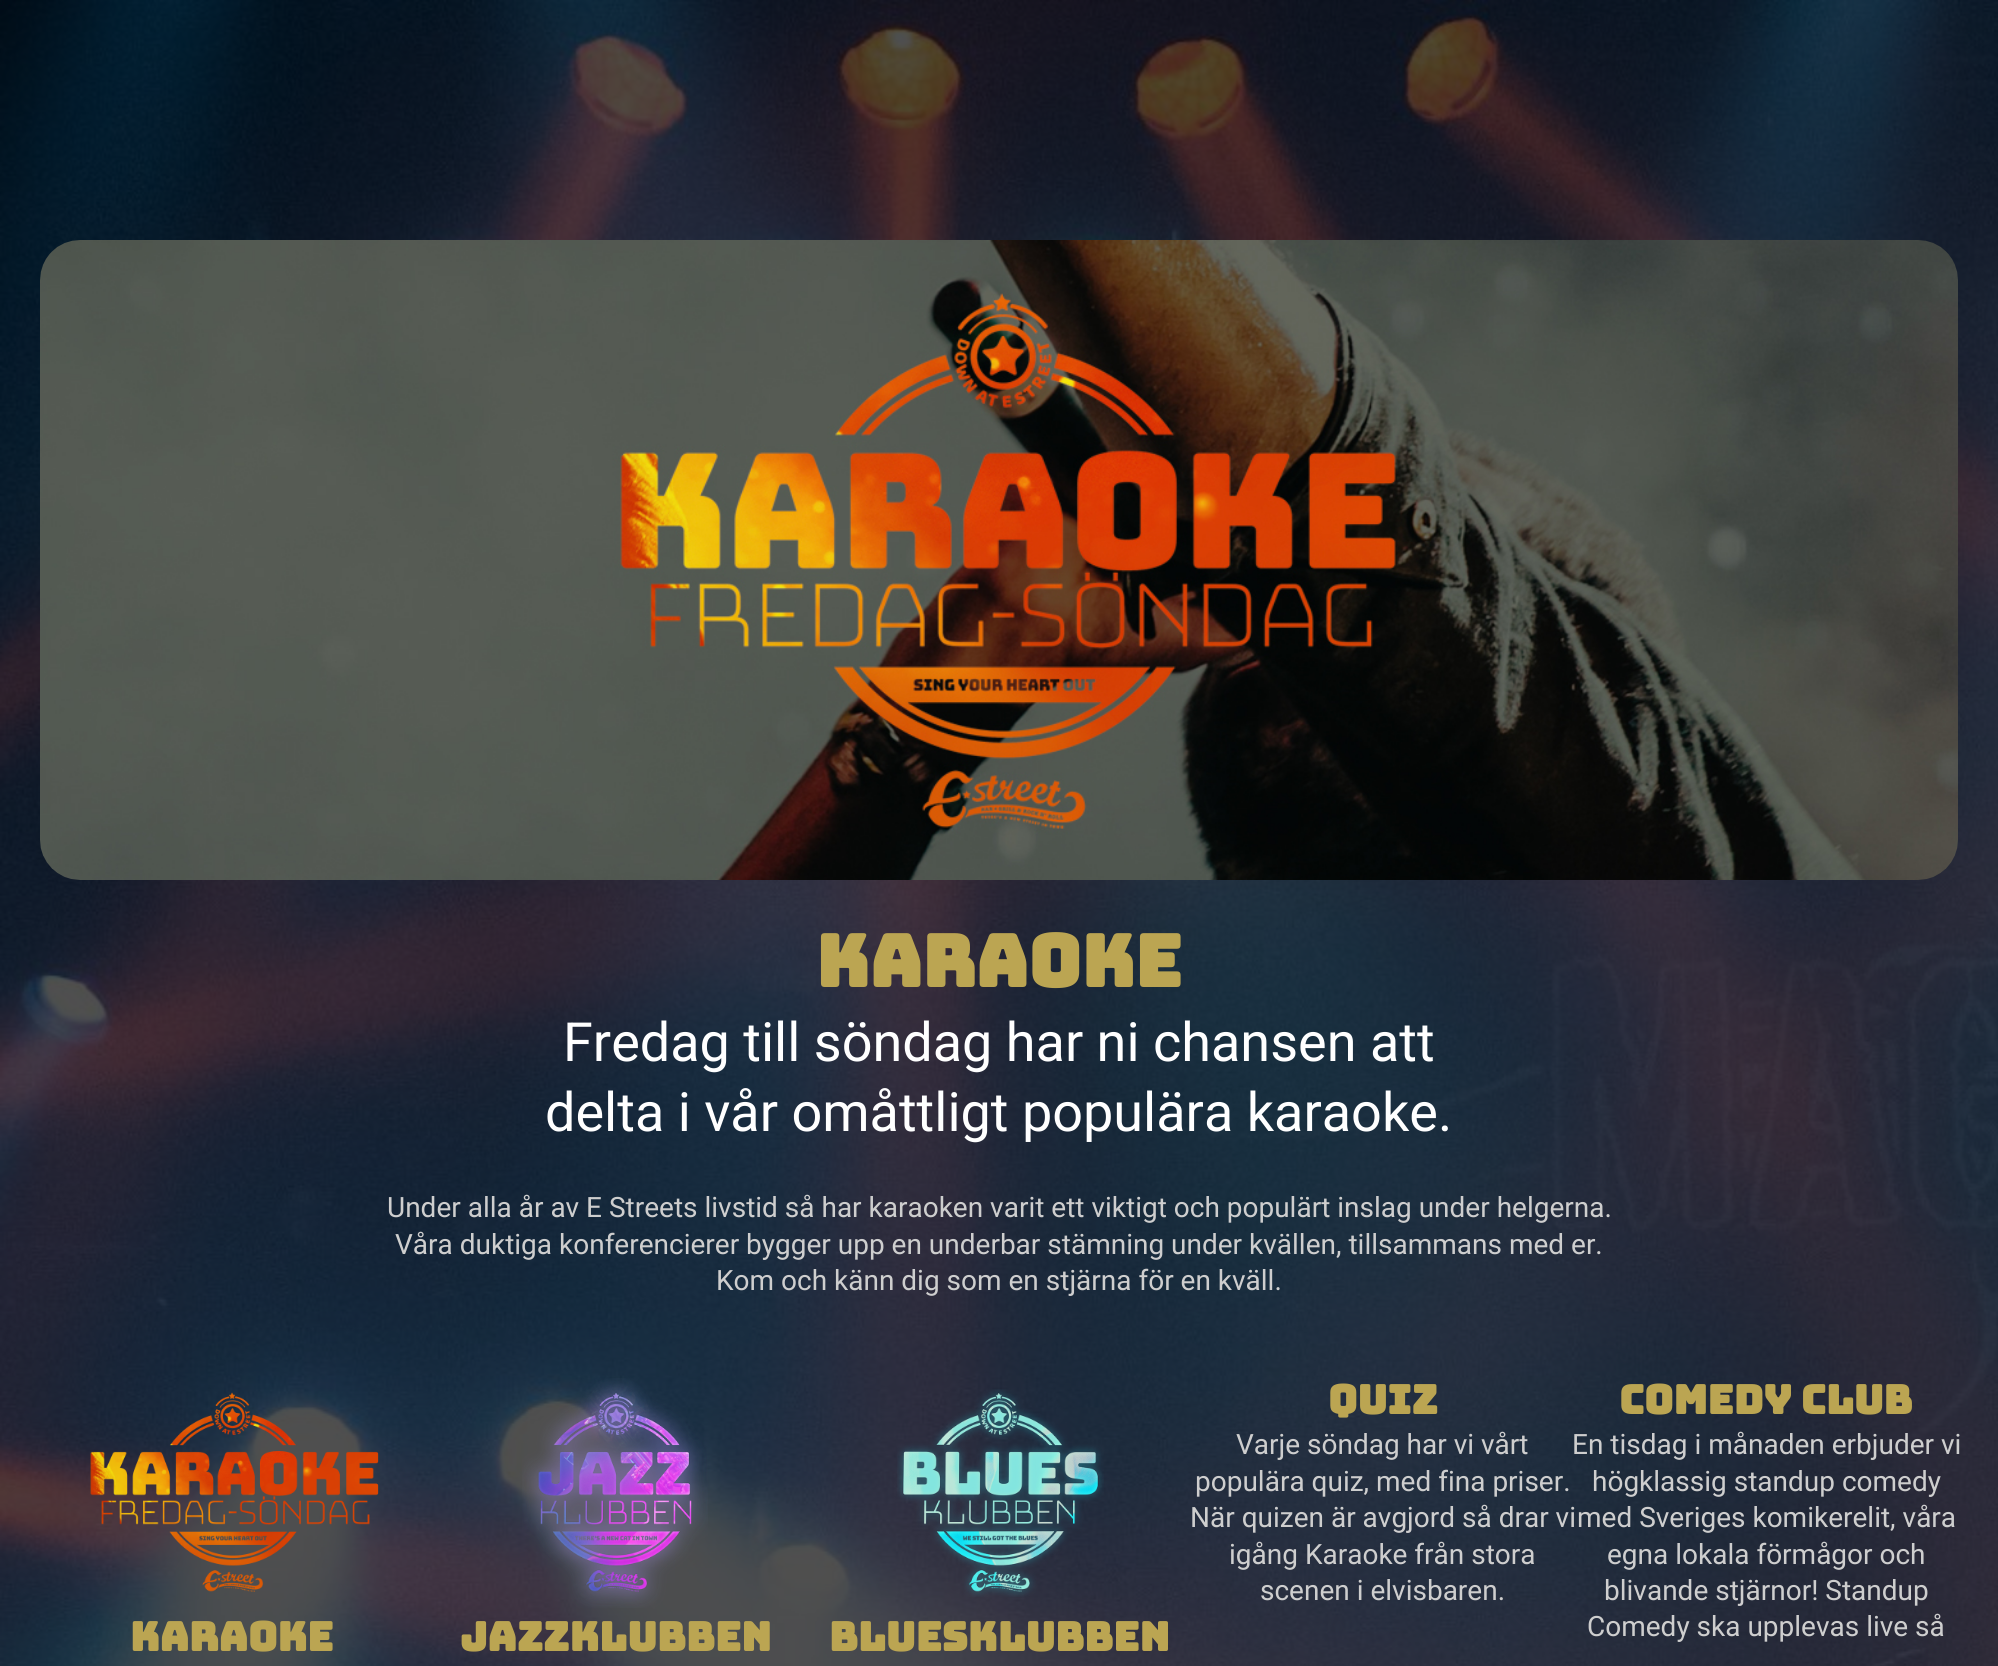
#include <cairo.h>
#include <math.h>
#include <stddef.h>

typedef struct { const char *family; double size; int italic, bold; unsigned color; } style_t;
static cairo_t *ctx;

static void ink(unsigned color) {
    cairo_set_source_rgb(ctx, (color >> 16) / 255.0, (color >> 8 & 255) / 255.0, (color & 255) / 255.0);
}

static void write(double x, double y, const char *s, const style_t *st) {
    cairo_select_font_face(ctx, st->family, st->italic ? CAIRO_FONT_SLANT_ITALIC : CAIRO_FONT_SLANT_NORMAL,
        st->bold ? CAIRO_FONT_WEIGHT_BOLD : CAIRO_FONT_WEIGHT_NORMAL);
    cairo_set_font_size(ctx, st->size);
    ink(st->color);
    cairo_move_to(ctx, x, y);
    cairo_show_text(ctx, s);
}

static void paste(const char *path, double x, double y, double w, double h) {
    cairo_surface_t *image = cairo_image_surface_create_from_png(path);
    cairo_save(ctx);
    cairo_set_source_surface(ctx, image, x, y);
    cairo_rectangle(ctx, x, y, w, h);
    cairo_fill(ctx);
    cairo_restore(ctx);
    cairo_surface_destroy(image);
}

static const style_t s1 = {"Bungee", 72, 0, 1, 0xbba552};
static const style_t s2 = {"Roboto", 54, 0, 0, 0xffffff};
static const style_t s3 = {"Roboto", 28, 0, 0, 0xcecece};
static const style_t s4 = {"Bungee", 40, 0, 1, 0xbba552};

int main(void) {
    cairo_surface_t *surface = cairo_image_surface_create(CAIRO_FORMAT_RGB24, 1998, 1666);
    ctx = cairo_create(surface);
    cairo_font_options_t *options = cairo_font_options_create();
    cairo_font_options_set_hint_metrics(options, CAIRO_HINT_METRICS_OFF);
    cairo_font_options_set_hint_style(options, CAIRO_HINT_STYLE_NONE);
    cairo_set_font_options(ctx, options);
    cairo_set_miter_limit(ctx, 4);
    ink(0xffffff);
    cairo_paint(ctx);
    paste("pic1.png", 0, 0, 1998, 1666);
    paste("pic2.png", 40, 240, 1918, 640);
    write(816, 987, "KARAOKE", &s1);
    write(563, 1061, "Fredag till söndag har ni chansen att", &s2);
    write(545, 1131, "delta i vår omåttligt populära karaoke.", &s2);
    write(387, 1217, "Under alla år av E Streets livstid så har karaoken varit ett viktigt och populärt inslag under helgerna.", &s3);
    write(395, 1254, "Våra duktiga konferencierer bygger upp en underbar stämning under kvällen, tillsammans med er.", &s3);
    write(716, 1290, "Kom och känn dig som en stjärna för en kväll.", &s3);
    paste("pic3.png", 90, 1392, 289, 200);
    write(130, 1651, "KARAOKE", &s4);
    paste("pic4.png", 522, 1378, 186, 230);
    write(460, 1651, "JAZZKLUBBEN", &s4);
    paste("pic5.png", 897, 1389, 207, 208);
    write(829, 1651, "BLUESKLUBBEN", &s4);
    write(1328, 1414, "QUIZ", &s4);
    write(1236, 1454, "Varje söndag har vi vårt", &s3);
    write(1195, 1491, "populära quiz, med fina priser.", &s3);
    write(1190, 1527, "När quizen är avgjord så drar vi", &s3);
    write(1229, 1564, "igång Karaoke från stora", &s3);
    write(1260, 1600, "scenen i elvisbaren.", &s3);
    write(1619, 1414, "COMEDY CLUB", &s4);
    write(1572, 1454, "En tisdag i månaden erbjuder vi", &s3);
    write(1592, 1491, "högklassig standup comedy", &s3);
    write(1577, 1527, "med Sveriges komikerelit, våra", &s3);
    write(1607, 1564, "egna lokala förmågor och", &s3);
    write(1604, 1600, "blivande stjärnor! Standup", &s3);
    write(1587, 1636, "Comedy ska upplevas live så", &s3);
    cairo_surface_write_to_png(surface, "screenshot.png");
    cairo_font_options_destroy(options);
    cairo_destroy(ctx);
    cairo_surface_destroy(surface);
    return 0;
}
